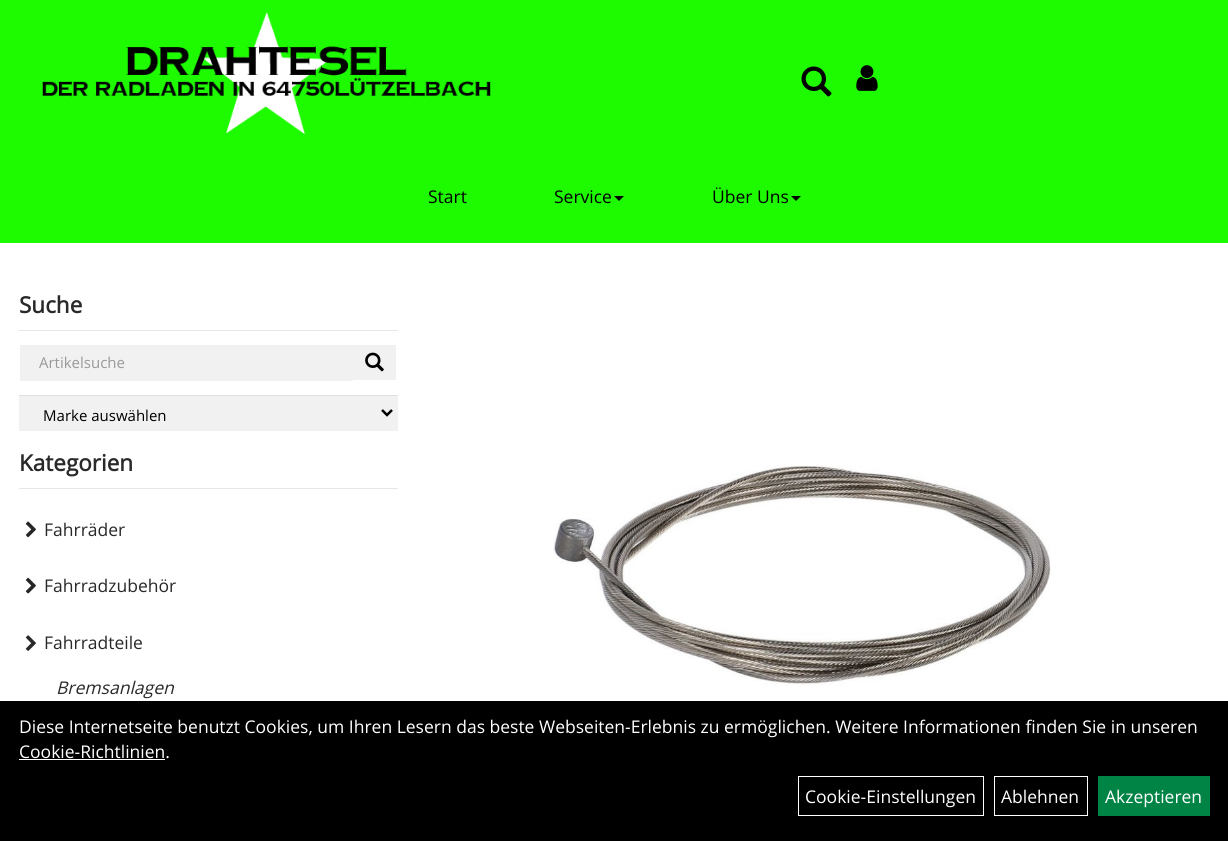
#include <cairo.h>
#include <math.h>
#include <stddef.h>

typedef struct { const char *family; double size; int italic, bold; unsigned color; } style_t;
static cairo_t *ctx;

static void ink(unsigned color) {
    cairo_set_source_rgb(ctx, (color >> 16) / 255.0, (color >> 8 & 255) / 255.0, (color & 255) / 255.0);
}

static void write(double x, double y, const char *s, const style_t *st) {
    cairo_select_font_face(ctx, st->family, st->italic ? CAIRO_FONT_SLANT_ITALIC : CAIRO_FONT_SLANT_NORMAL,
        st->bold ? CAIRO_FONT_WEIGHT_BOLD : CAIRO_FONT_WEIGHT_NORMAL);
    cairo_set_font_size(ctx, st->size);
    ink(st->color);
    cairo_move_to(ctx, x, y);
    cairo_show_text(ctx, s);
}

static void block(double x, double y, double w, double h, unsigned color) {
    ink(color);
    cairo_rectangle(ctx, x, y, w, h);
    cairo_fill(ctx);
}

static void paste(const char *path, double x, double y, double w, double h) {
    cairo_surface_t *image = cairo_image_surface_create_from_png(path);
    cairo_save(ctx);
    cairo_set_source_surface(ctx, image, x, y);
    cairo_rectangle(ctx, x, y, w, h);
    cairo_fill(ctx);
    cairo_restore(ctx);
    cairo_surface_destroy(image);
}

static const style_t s1 = {"Open Sans", 17.5, 0, 0, 0x000000};
static const style_t s2 = {"Open Sans", 22.5, 0, 1, 0x292929};
static const style_t s3 = {"Open Sans", 15, 0, 0, 0x999999};
static const style_t s4 = {"Open Sans", 15, 0, 0, 0x000000};
static const style_t s5 = {"Open Sans", 17.5, 0, 0, 0x292929};
static const style_t s6 = {"Open Sans", 17.5, 1, 0, 0x292929};
static const style_t s7 = {"Open Sans", 17.5, 0, 0, 0xffffff};

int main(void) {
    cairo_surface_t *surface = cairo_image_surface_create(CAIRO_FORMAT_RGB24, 1228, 841);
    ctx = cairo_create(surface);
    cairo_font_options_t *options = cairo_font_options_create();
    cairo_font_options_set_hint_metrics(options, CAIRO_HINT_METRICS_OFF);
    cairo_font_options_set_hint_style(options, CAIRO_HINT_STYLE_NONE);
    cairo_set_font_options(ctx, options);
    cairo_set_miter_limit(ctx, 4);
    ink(0xffffff);
    cairo_paint(ctx);
    block(0, 0, 1228, 243, 0x1efb01);
    paste("pic1.png", 42, 12, 449, 122);
    paste("pic2.png", 801, 66, 31, 31);
    paste("pic3.png", 856, 65, 22, 26);
    write(428, 203, "Start", &s1);
    write(554, 203, "Service", &s1);
    cairo_new_path(ctx);
    cairo_move_to(ctx, 614, 196);
    cairo_line_to(ctx, 624, 196);
    cairo_line_to(ctx, 619, 201);
    cairo_close_path(ctx);
    cairo_fill(ctx);
    write(712, 203, "Über Uns", &s1);
    cairo_new_path(ctx);
    cairo_move_to(ctx, 791, 196);
    cairo_line_to(ctx, 801, 196);
    cairo_line_to(ctx, 796, 201);
    cairo_close_path(ctx);
    cairo_fill(ctx);
    block(19, 330, 379, 1, 0xe6e6e6);
    write(19, 313, "Suche", &s2);
    block(20, 345, 333, 36, 0xf1f1f1);
    write(39, 368, "Artikelsuche", &s3);
    block(353, 345, 43, 35, 0xf1f1f1);
    paste("pic4.png", 365, 352, 19, 20);
    block(19, 396, 379, 35, 0xf1f1f1);
    block(19, 395, 379, 1, 0xdfdfdf);
    cairo_new_path(ctx);
    cairo_move_to(ctx, 382, 410);
    cairo_line_to(ctx, 387, 415);
    cairo_line_to(ctx, 392, 410);
    ink(0x000000);
    cairo_set_line_width(ctx, 2.5);
    cairo_stroke(ctx);
    write(43, 421, "Marke auswählen", &s4);
    block(19, 488, 379, 1, 0xe6e6e6);
    write(19, 471, "Kategorien", &s2);
    paste("pic5.png", 25, 521, 11, 17);
    write(44, 536, "Fahrräder", &s5);
    paste("pic6.png", 25, 577, 11, 17);
    write(44, 592, "Fahrradzubehör", &s5);
    paste("pic7.png", 25, 635, 11, 16);
    write(44, 649, "Fahrradteile", &s5);
    write(56, 694, "Bremsanlagen", &s6);
    paste("pic8.png", 553, 465, 498, 221);
    block(0, 701, 1228, 140, 0x000000);
    write(19, 733, "Diese Internetseite benutzt Cookies, um Ihren Lesern das beste Webseiten-Erlebnis zu ermöglichen. Weitere Informationen finden Sie in unseren", &s7);
    write(19, 758, "Cookie-Richtlinien.", &s7);
    block(19, 759, 146, 1, 0xffffff);
    cairo_rectangle(ctx, 798.5, 776.5, 185, 39);
    cairo_set_line_width(ctx, 1);
    cairo_stroke(ctx);
    write(805, 803, "Cookie-Einstellungen", &s7);
    cairo_rectangle(ctx, 994.5, 776.5, 93, 39);
    cairo_stroke(ctx);
    write(1001, 803, "Ablehnen", &s7);
    block(1098, 776, 112, 40, 0x008446);
    write(1105, 803, "Akzeptieren", &s7);
    cairo_surface_write_to_png(surface, "screenshot.png");
    cairo_font_options_destroy(options);
    cairo_destroy(ctx);
    cairo_surface_destroy(surface);
    return 0;
}
